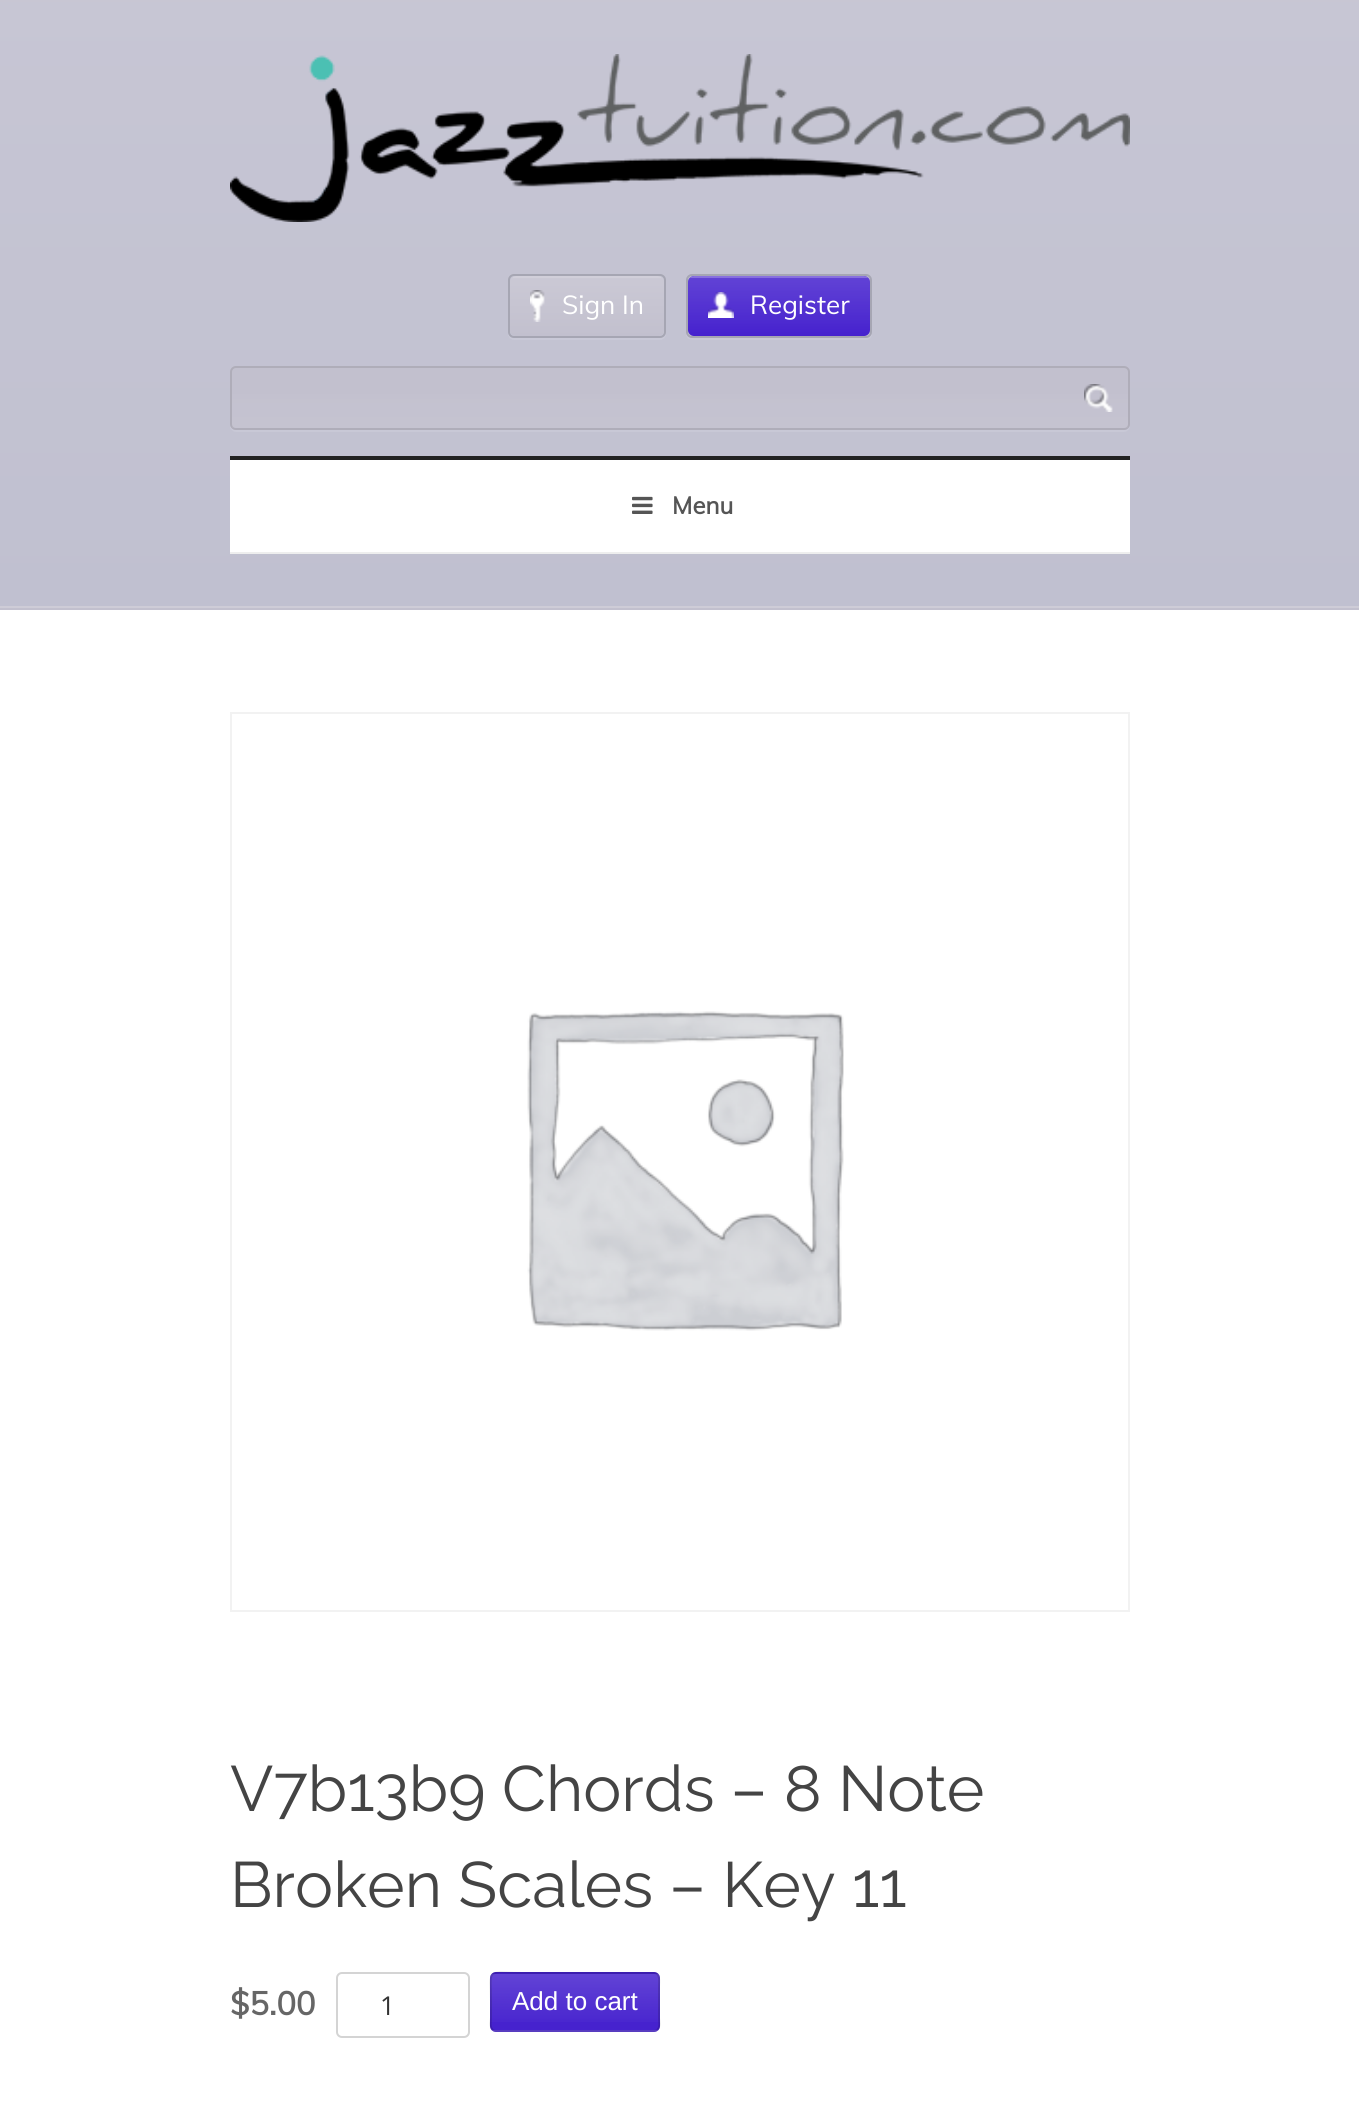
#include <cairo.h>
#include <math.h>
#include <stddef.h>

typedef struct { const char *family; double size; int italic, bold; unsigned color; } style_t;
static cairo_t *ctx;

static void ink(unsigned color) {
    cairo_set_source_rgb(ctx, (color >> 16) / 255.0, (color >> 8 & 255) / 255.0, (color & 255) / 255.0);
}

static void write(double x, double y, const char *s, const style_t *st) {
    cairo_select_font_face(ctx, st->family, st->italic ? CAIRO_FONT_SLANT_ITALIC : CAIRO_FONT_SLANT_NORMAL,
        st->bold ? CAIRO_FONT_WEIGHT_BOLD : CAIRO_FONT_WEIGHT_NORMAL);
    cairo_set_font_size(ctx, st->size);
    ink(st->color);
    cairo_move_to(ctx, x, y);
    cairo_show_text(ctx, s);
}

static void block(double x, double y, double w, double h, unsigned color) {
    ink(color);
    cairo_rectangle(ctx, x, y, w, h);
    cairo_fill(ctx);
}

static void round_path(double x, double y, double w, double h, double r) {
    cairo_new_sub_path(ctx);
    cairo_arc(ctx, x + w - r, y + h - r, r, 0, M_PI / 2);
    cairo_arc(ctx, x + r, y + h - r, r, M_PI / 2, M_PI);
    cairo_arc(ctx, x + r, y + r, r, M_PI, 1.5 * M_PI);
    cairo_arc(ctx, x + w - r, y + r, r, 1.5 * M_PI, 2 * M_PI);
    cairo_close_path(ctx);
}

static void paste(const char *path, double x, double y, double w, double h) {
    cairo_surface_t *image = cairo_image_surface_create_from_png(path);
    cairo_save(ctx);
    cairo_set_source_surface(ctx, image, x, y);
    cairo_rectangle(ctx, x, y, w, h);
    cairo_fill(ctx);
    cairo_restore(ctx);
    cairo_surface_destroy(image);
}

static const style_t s1 = {"Muli", 26, 0, 0, 0xffffff};
static const style_t s2 = {"Muli", 24, 0, 1, 0x555555};
static const style_t s3 = {"Raleway Thin", 64, 0, 0, 0x444444};
static const style_t s4 = {"Muli", 32.5, 0, 1, 0x666666};
static const style_t s5 = {"Open Sans", 26, 0, 0, 0x333333};
static const style_t s6 = {"Liberation Sans", 26, 0, 0, 0xffffff};

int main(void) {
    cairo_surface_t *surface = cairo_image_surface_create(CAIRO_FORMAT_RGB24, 1359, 2121);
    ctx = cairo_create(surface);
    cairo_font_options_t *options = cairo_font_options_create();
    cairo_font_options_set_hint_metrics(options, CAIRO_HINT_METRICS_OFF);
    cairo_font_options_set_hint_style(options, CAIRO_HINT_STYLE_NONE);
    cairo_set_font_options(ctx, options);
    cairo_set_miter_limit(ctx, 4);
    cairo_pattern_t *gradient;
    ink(0xffffff);
    cairo_paint(ctx);
    gradient = cairo_pattern_create_linear(680, 2, 680, 606);
    cairo_pattern_add_color_stop_rgba(gradient, 0, 0.78, 0.776, 0.831, 1);
    cairo_pattern_add_color_stop_rgba(gradient, 1, 0.753, 0.753, 0.816, 1);
    cairo_set_source(ctx, gradient);
    cairo_pattern_destroy(gradient);
    cairo_rectangle(ctx, 0, 2, 1359, 604);
    cairo_fill(ctx);
    block(0, 0, 1359, 2, 0xc8c6d3);
    block(0, 606, 1359, 2, 0xceccd7);
    paste("pic1.png", 230, 54, 900, 168);
    ink(0xc9c9d7);
    cairo_new_path(ctx);
    cairo_move_to(ctx, 508, 332);
    cairo_line_to(ctx, 508, 334);
    cairo_curve_to(ctx, 508, 337, 511, 340, 514, 340);
    cairo_line_to(ctx, 660, 340);
    cairo_curve_to(ctx, 663, 340, 666, 337, 666, 334);
    cairo_line_to(ctx, 666, 332);
    cairo_curve_to(ctx, 666, 335, 663, 338, 660, 338);
    cairo_line_to(ctx, 514, 338);
    cairo_curve_to(ctx, 511, 338, 508, 335, 508, 332);
    cairo_close_path(ctx);
    cairo_fill(ctx);
    round_path(509, 275, 156, 62, 5);
    ink(0xa6a6b3);
    cairo_stroke(ctx);
    gradient = cairo_pattern_create_linear(587, 276, 587, 336);
    cairo_pattern_add_color_stop_rgba(gradient, 0, 0.796, 0.788, 0.835, 1);
    cairo_pattern_add_color_stop_rgba(gradient, 1, 0.761, 0.753, 0.808, 1);
    cairo_set_source(ctx, gradient);
    cairo_pattern_destroy(gradient);
    round_path(510, 276, 154, 60, 6);
    cairo_fill(ctx);
    paste("pic2.png", 513, 276, 148, 2);
    paste("pic3.png", 530, 290, 15, 32);
    write(562, 314, "Sign In", &s1);
    ink(0xc9c9d7);
    cairo_new_path(ctx);
    cairo_move_to(ctx, 686, 332);
    cairo_line_to(ctx, 686, 334);
    cairo_curve_to(ctx, 686, 337, 689, 340, 692, 340);
    cairo_line_to(ctx, 866, 340);
    cairo_curve_to(ctx, 869, 340, 872, 337, 872, 334);
    cairo_line_to(ctx, 872, 332);
    cairo_curve_to(ctx, 872, 335, 869, 338, 866, 338);
    cairo_line_to(ctx, 692, 338);
    cairo_curve_to(ctx, 689, 338, 686, 335, 686, 332);
    cairo_close_path(ctx);
    cairo_fill(ctx);
    round_path(687, 275, 184, 62, 5);
    ink(0xa6a6b3);
    cairo_stroke(ctx);
    ink(0x4622ce);
    round_path(688, 276, 182, 60, 6);
    cairo_fill(ctx);
    gradient = cairo_pattern_create_linear(779, 276, 779, 336);
    cairo_pattern_add_color_stop_rgba(gradient, 0, 1, 1, 1, 0.15);
    cairo_pattern_add_color_stop_rgba(gradient, 1, 1, 1, 1, 0);
    cairo_set_source(ctx, gradient);
    cairo_pattern_destroy(gradient);
    round_path(688, 276, 182, 60, 6);
    cairo_fill(ctx);
    paste("pic4.png", 690, 276, 178, 2);
    paste("pic5.png", 708, 292, 26, 26);
    write(750, 314, "Register", &s1);
    ink(0xc8c8d6);
    cairo_new_path(ctx);
    cairo_move_to(ctx, 230, 424);
    cairo_line_to(ctx, 230, 426);
    cairo_curve_to(ctx, 230, 429, 233, 432, 236, 432);
    cairo_line_to(ctx, 1124, 432);
    cairo_curve_to(ctx, 1127, 432, 1130, 429, 1130, 426);
    cairo_line_to(ctx, 1130, 424);
    cairo_curve_to(ctx, 1130, 427, 1127, 430, 1124, 430);
    cairo_line_to(ctx, 236, 430);
    cairo_curve_to(ctx, 233, 430, 230, 427, 230, 424);
    cairo_close_path(ctx);
    cairo_fill(ctx);
    ink(0xc2c0ce);
    round_path(230, 366, 900, 64, 6);
    cairo_fill(ctx);
    paste("pic6.png", 1084, 384, 29, 28);
    round_path(231, 367, 898, 62, 5);
    ink(0xafadb9);
    cairo_stroke(ctx);
    gradient = cairo_pattern_create_linear(680, 368, 680, 428);
    cairo_pattern_add_color_stop_rgba(gradient, 0, 1, 1, 1, 0);
    cairo_pattern_add_color_stop_rgba(gradient, 1, 1, 1, 1, 0.05);
    cairo_set_source(ctx, gradient);
    cairo_pattern_destroy(gradient);
    cairo_rectangle(ctx, 232, 394, 896, 34);
    cairo_fill(ctx);
    block(230, 460, 900, 92, 0xffffff);
    block(230, 456, 900, 4, 0x222222);
    block(230, 552, 900, 2, 0xeeeeee);
    paste("pic7.png", 632, 496, 21, 18);
    write(672, 514, "Menu", &s2);
    block(0, 608, 1359, 2, 0xc2c0ce);
    cairo_rectangle(ctx, 231, 713, 898, 898);
    ink(0xf2f2f2);
    cairo_stroke(ctx);
    paste("pic8.png", 527, 1011, 317, 320);
    write(230, 1811, "V7b13b9 Chords – 8 Note", &s3);
    write(230, 1907, "Broken Scales – Key 11", &s3);
    write(230, 2015, "$5.00", &s4);
    round_path(337, 1973, 132, 64, 5);
    ink(0xd4d4d4);
    cairo_stroke(ctx);
    write(380, 2015, "1", &s5);
    ink(0x4622ce);
    round_path(490, 1972, 170, 60, 6);
    cairo_fill(ctx);
    cairo_save(ctx);
    round_path(490, 1972, 170, 60, 6);
    cairo_clip(ctx);
    gradient = cairo_pattern_create_linear(575, 1974, 575, 2030);
    cairo_pattern_add_color_stop_rgba(gradient, 0, 1, 1, 1, 0.15);
    cairo_pattern_add_color_stop_rgba(gradient, 1, 1, 1, 1, 0);
    cairo_set_source(ctx, gradient);
    cairo_pattern_destroy(gradient);
    cairo_rectangle(ctx, 490, 1974, 170, 48);
    cairo_fill(ctx);
    gradient = cairo_pattern_create_linear(575, 2030, 575, 2086);
    cairo_pattern_add_color_stop_rgba(gradient, 0, 1, 1, 1, 0.15);
    cairo_pattern_add_color_stop_rgba(gradient, 1, 1, 1, 1, 0);
    cairo_set_source(ctx, gradient);
    cairo_pattern_destroy(gradient);
    cairo_rectangle(ctx, 490, 2030, 170, 2);
    cairo_fill(ctx);
    cairo_restore(ctx);
    cairo_new_path(ctx);
    cairo_move_to(ctx, 657.5, 2029.5);
    cairo_curve_to(ctx, 656.5, 2030.5, 655.5, 2031, 654, 2031);
    cairo_line_to(ctx, 496, 2031);
    cairo_curve_to(ctx, 494.5, 2031, 493.5, 2030.5, 492.5, 2029.5);
    cairo_set_source_rgba(ctx, 0, 0, 0, 0.1);
    cairo_stroke(ctx);
    cairo_new_path(ctx);
    cairo_move_to(ctx, 492.5, 2029.5);
    cairo_curve_to(ctx, 489.5, 2027, 491, 2020.5, 491, 2018);
    cairo_line_to(ctx, 491, 2002);
    cairo_curve_to(ctx, 491, 1966.5, 485, 1973, 522.5, 1973);
    cairo_line_to(ctx, 654, 1973);
    cairo_curve_to(ctx, 660.5, 1973, 659, 1982, 659, 1986);
    cairo_line_to(ctx, 659, 2018);
    cairo_curve_to(ctx, 659, 2020.5, 660.5, 2027, 657.5, 2029.5);
    cairo_set_source_rgba(ctx, 0, 0, 0, 0.15);
    cairo_stroke(ctx);
    write(512, 2010, "Add to cart", &s6);
    cairo_surface_write_to_png(surface, "screenshot.png");
    cairo_font_options_destroy(options);
    cairo_destroy(ctx);
    cairo_surface_destroy(surface);
    return 0;
}
